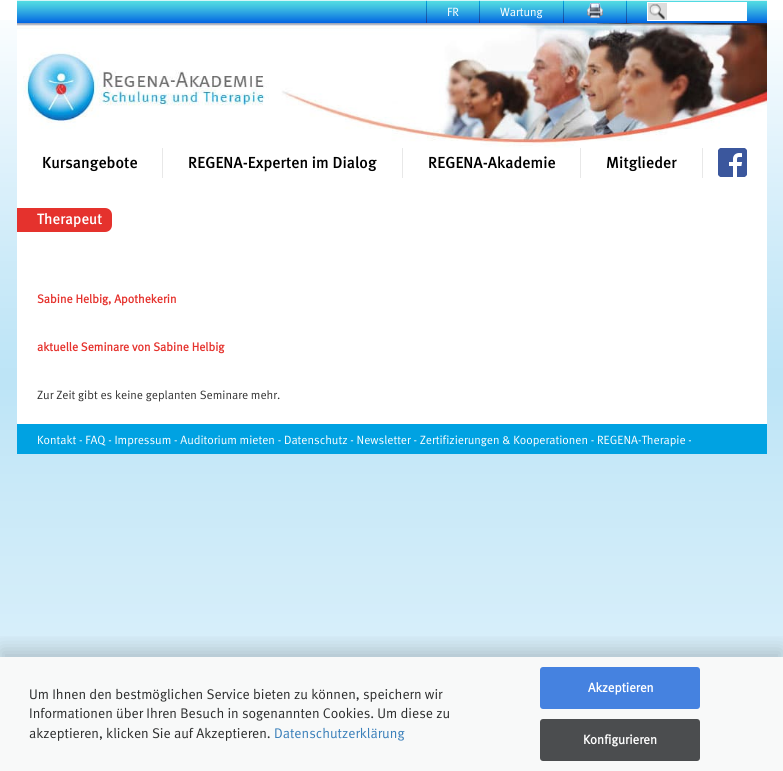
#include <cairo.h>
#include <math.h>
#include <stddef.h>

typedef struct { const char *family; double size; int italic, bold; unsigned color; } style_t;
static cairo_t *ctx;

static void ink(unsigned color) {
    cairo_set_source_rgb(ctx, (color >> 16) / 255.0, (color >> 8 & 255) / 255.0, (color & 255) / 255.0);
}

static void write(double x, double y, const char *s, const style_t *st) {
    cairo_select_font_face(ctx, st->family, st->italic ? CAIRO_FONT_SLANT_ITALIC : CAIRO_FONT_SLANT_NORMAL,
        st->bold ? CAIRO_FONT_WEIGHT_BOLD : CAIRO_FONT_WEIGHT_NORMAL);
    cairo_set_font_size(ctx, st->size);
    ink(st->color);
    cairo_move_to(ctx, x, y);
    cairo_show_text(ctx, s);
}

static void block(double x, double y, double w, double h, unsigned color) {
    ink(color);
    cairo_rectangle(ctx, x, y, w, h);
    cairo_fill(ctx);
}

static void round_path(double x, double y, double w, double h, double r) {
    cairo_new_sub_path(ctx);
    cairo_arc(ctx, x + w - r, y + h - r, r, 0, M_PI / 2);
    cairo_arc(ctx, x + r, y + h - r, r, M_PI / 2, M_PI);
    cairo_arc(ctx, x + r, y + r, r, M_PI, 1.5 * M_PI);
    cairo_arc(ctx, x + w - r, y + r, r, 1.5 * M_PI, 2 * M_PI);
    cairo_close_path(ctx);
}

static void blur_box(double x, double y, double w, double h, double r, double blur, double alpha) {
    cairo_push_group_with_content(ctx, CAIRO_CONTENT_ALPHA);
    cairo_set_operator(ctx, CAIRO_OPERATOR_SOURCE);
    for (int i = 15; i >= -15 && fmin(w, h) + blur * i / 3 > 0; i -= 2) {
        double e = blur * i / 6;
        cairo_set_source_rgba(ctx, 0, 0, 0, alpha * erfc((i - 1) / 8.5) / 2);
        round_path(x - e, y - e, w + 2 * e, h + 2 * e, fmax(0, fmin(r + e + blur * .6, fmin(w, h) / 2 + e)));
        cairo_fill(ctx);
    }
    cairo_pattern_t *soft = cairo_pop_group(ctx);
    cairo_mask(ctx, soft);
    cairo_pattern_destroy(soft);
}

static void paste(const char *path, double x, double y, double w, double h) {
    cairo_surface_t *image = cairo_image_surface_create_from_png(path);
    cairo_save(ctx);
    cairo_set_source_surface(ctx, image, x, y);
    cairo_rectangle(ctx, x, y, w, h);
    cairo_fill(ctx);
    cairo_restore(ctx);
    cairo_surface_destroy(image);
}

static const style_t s1 = {"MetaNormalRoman", 12, 0, 0, 0xffffff};
static const style_t s2 = {"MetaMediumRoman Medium", 16, 0, 0, 0x000000};
static const style_t s3 = {"MetaMediumRoman Medium", 15, 0, 0, 0xffffff};
static const style_t s4 = {"MetaNormalRoman", 12, 0, 1, 0xe5322d};
static const style_t s5 = {"MetaNormalRoman", 12, 0, 0, 0x333333};
static const style_t s6 = {"MetaNormalRoman", 14, 0, 0, 0x2b2c2c};
static const style_t s7 = {"MetaNormalRoman", 14, 0, 0, 0x387eb9};
static const style_t s8 = {"MetaNormalRoman", 13, 0, 1, 0xffffff};

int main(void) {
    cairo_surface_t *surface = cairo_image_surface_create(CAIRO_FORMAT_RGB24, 783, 771);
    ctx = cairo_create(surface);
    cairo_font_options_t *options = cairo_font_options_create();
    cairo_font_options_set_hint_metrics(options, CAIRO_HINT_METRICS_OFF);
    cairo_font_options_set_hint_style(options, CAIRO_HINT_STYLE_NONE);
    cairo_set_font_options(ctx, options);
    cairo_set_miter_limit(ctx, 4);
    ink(0xffffff);
    cairo_paint(ctx);
    paste("pic1.png", 0, 20, 783, 751);
    paste("pic2.png", 17, 0, 750, 23);
    paste("pic3.png", 426, 0, 1, 23);
    write(447, 16, "FR", &s1);
    paste("pic3.png", 479, 0, 1, 23);
    write(500, 16, "Wartung", &s1);
    paste("pic3.png", 563, 0, 1, 23);
    paste("pic4.png", 587, 3, 16, 15);
    paste("pic3.png", 626, 0, 1, 23);
    block(647, 2, 100, 19, 0xffffff);
    paste("pic5.png", 648, 3, 19, 17);
    paste("pic6.png", 17, 23, 750, 125);
    block(17, 148, 750, 276, 0xffffff);
    block(162, 148, 1, 30, 0xe8e8e8);
    write(42, 168, "Kursangebote", &s2);
    block(402, 148, 1, 30, 0xe8e8e8);
    write(188, 168, "REGENA-Experten im Dialog", &s2);
    block(580, 148, 1, 30, 0xe8e8e8);
    write(428, 168, "REGENA-Akademie", &s2);
    block(702, 148, 1, 30, 0xe8e8e8);
    write(606, 168, "Mitglieder", &s2);
    paste("pic7.png", 718, 148, 29, 29);
    ink(0xe5322d);
    cairo_new_path(ctx);
    cairo_move_to(ctx, 17, 208);
    cairo_line_to(ctx, 105, 208);
    cairo_curve_to(ctx, 109, 208, 112, 211, 112, 215);
    cairo_line_to(ctx, 112, 225);
    cairo_curve_to(ctx, 112, 229, 109, 232, 105, 232);
    cairo_line_to(ctx, 17, 232);
    cairo_close_path(ctx);
    cairo_fill(ctx);
    write(37, 224, "Therapeut", &s3);
    write(37, 303, "Sabine Helbig, Apothekerin", &s4);
    write(37, 351, "aktuelle Seminare von Sabine Helbig", &s4);
    write(37, 399, "Zur Zeit gibt es keine geplanten Seminare mehr.", &s5);
    block(17, 424, 750, 30, 0x00a2e2);
    write(37, 444, "Kontakt - FAQ - Impressum - Auditorium mieten - Datenschutz - Newsletter - Zertifizierungen & Kooperationen - REGENA-Therapie -", &s1);
    cairo_save(ctx);
    cairo_rectangle(ctx, 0, 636, 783, 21);
    cairo_clip(ctx);
    ink(0x000000);
    blur_box(0, 649, 783, 114, 0, 10, 0.19);
    cairo_restore(ctx);
    cairo_set_source_rgba(ctx, 0.976, 0.976, 0.976, 0.97);
    cairo_rectangle(ctx, 0, 657, 783, 114);
    cairo_fill(ctx);
    write(29, 699, "Um Ihnen den bestmöglichen Service bieten zu können, speichern wir", &s6);
    write(29, 718, "Informationen über Ihren Besuch in sogenannten Cookies. Um diese zu", &s6);
    write(29, 738, "akzeptieren, klicken Sie auf Akzeptieren.", &s6);
    write(274, 738, "Datenschutzerklärung", &s7);
    ink(0x4582e0);
    round_path(540, 667, 160, 42, 3);
    cairo_fill(ctx);
    write(588, 692, "Akzeptieren", &s8);
    ink(0x4b4d4f);
    round_path(540, 719, 160, 42, 3);
    cairo_fill(ctx);
    write(583, 744, "Konfigurieren", &s8);
    cairo_surface_write_to_png(surface, "screenshot.png");
    cairo_font_options_destroy(options);
    cairo_destroy(ctx);
    cairo_surface_destroy(surface);
    return 0;
}
